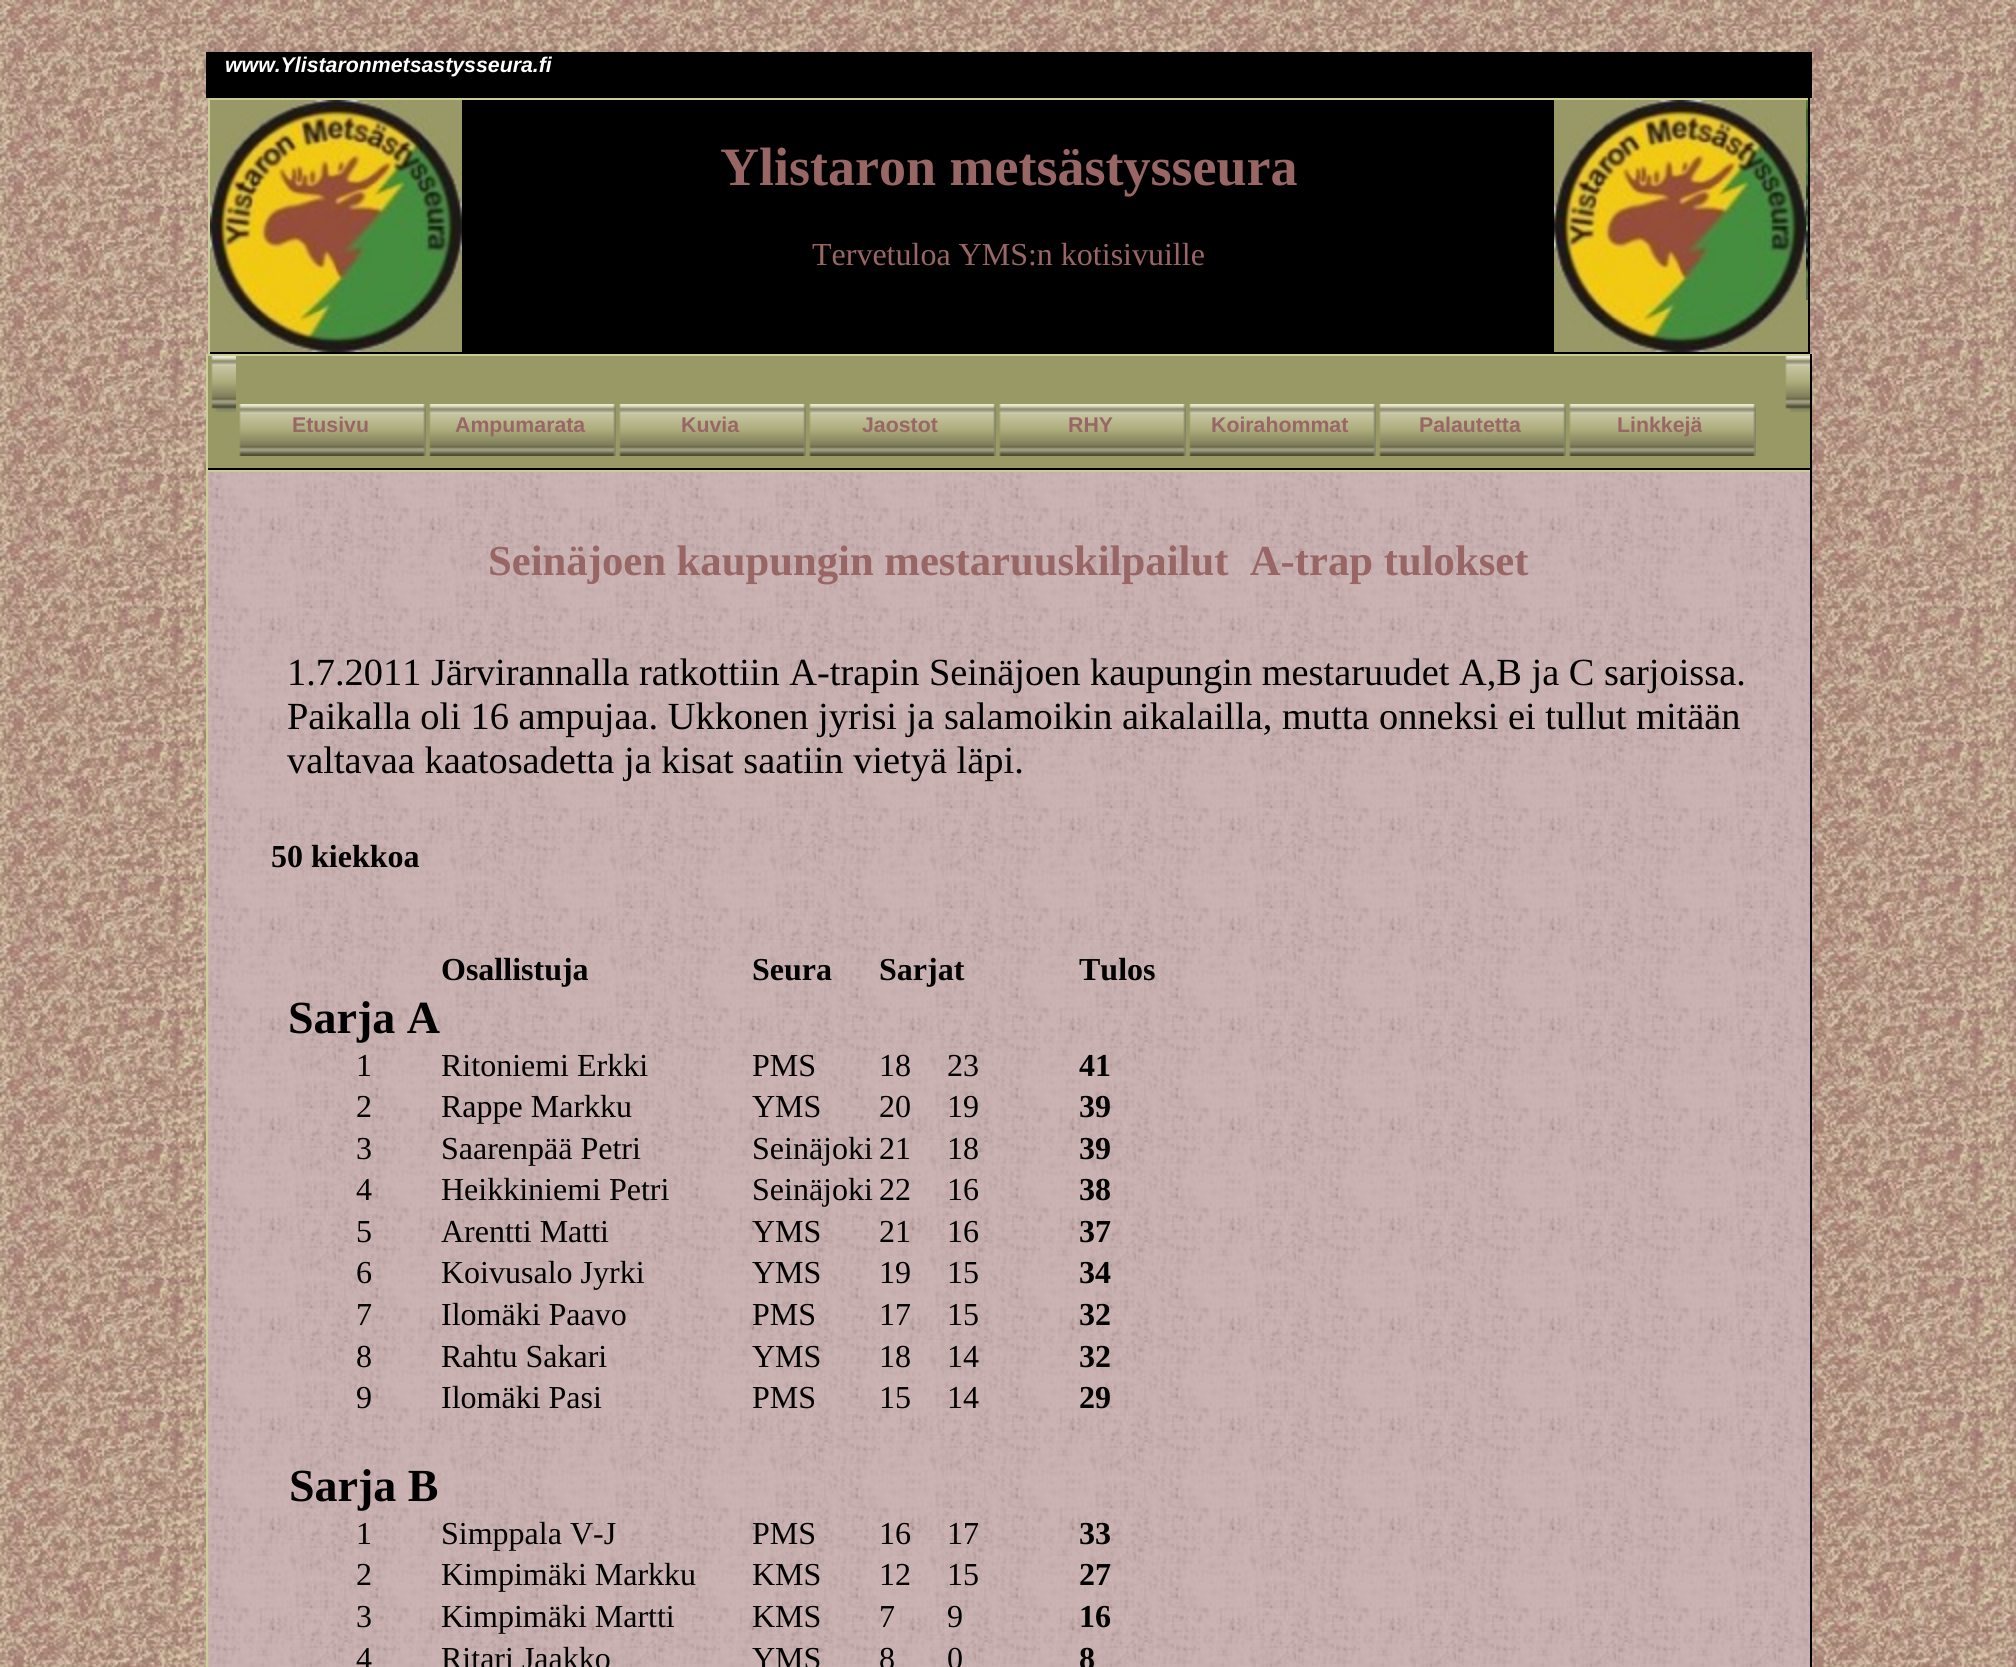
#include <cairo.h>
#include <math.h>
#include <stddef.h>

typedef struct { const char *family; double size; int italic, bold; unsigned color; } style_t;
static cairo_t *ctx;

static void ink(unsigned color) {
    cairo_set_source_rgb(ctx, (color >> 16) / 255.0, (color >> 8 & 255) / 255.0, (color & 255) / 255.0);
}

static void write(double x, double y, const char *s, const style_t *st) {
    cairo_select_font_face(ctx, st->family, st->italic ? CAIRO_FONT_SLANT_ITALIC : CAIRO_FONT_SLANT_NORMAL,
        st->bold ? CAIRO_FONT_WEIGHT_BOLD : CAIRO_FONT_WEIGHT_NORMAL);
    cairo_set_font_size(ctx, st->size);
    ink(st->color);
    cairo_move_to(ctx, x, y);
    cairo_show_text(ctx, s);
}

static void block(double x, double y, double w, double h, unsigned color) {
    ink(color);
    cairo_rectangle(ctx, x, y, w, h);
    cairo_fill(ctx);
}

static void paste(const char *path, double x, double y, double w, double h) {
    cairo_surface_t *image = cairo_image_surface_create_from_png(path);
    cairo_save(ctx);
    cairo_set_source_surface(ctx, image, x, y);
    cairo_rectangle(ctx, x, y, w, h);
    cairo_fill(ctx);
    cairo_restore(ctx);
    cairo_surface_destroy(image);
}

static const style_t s1 = {"Liberation Sans", 21.3, 1, 1, 0xffffff};
static const style_t s2 = {"Liberation Serif", 54, 0, 1, 0x996666};
static const style_t s3 = {"Liberation Serif", 32, 0, 0, 0x996666};
static const style_t s4 = {"Liberation Sans", 21.3, 0, 1, 0x996666};
static const style_t s5 = {"Liberation Serif", 42.7, 0, 1, 0x996666};
static const style_t s6 = {"Liberation Serif", 38.4, 0, 0, 0x000000};
static const style_t s7 = {"Liberation Serif", 32, 0, 1, 0x000000};
static const style_t s8 = {"Liberation Serif", 46, 0, 1, 0x000000};
static const style_t s9 = {"Liberation Serif", 32, 0, 0, 0x000000};

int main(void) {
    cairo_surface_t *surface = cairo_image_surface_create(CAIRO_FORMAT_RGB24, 2016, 1667);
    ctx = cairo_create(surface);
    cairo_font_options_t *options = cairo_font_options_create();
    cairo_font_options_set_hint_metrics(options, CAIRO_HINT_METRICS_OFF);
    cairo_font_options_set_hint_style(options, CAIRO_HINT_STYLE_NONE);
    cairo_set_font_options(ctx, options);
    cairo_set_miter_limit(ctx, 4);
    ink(0xffffff);
    cairo_paint(ctx);
    paste("pic1.png", 0, 0, 2016, 1667);
    block(206, 52, 1606, 46, 0x000000);
    write(225, 72, "www.Ylistaronmetsastysseura.fi", &s1);
    block(1806, 300, 2, 52, 0x999966);
    block(208, 98, 1602, 2, 0xcccc99);
    block(1808, 98, 2, 256, 0x000000);
    block(208, 352, 1602, 2, 0x000000);
    block(208, 98, 2, 256, 0xcccc99);
    paste("pic2.png", 210, 100, 252, 252);
    block(462, 100, 1092, 252, 0x000000);
    write(720, 185, "Ylistaron metsästysseura", &s2);
    write(812, 265, "Tervetuloa YMS:n kotisivuille", &s3);
    paste("pic3.png", 1806, 100, 2, 200);
    paste("pic2.png", 1554, 100, 252, 252);
    block(208, 356, 1602, 112, 0x999966);
    block(206, 354, 1606, 2, 0xcccc99);
    block(1810, 354, 2, 116, 0x000000);
    block(206, 468, 1606, 2, 0x000000);
    block(206, 354, 2, 116, 0xcccc99);
    paste("pic4.png", 211, 356, 25, 56);
    paste("pic4.png", 1785, 356, 25, 56);
    paste("pic5.png", 239, 404, 187, 52);
    write(292, 432, "Etusivu", &s4);
    paste("pic5.png", 429, 404, 187, 52);
    write(455, 432, "Ampumarata", &s4);
    paste("pic5.png", 619, 404, 187, 52);
    write(681, 432, "Kuvia", &s4);
    paste("pic5.png", 809, 404, 187, 52);
    write(862, 432, "Jaostot", &s4);
    paste("pic5.png", 999, 404, 187, 52);
    write(1068, 432, "RHY", &s4);
    paste("pic5.png", 1189, 404, 187, 52);
    write(1211, 432, "Koirahommat", &s4);
    paste("pic5.png", 1379, 404, 187, 52);
    write(1419, 432, "Palautetta", &s4);
    paste("pic5.png", 1569, 404, 187, 52);
    write(1617, 432, "Linkkejä", &s4);
    paste("pic6.png", 208, 472, 1602, 1195);
    block(206, 470, 1606, 2, 0xcccc99);
    block(1810, 470, 2, 1197, 0x000000);
    block(206, 470, 2, 1197, 0xcccc99);
    write(488, 575, "Seinäjoen kaupungin mestaruuskilpailut  A-trap tulokset", &s5);
    write(287, 685, "1.7.2011 Järvirannalla ratkottiin A-trapin Seinäjoen kaupungin mestaruudet A,B ja C sarjoissa.", &s6);
    write(287, 729, "Paikalla oli 16 ampujaa. Ukkonen jyrisi ja salamoikin aikalailla, mutta onneksi ei tullut mitään", &s6);
    write(287, 773, "valtavaa kaatosadetta ja kisat saatiin vietyä läpi.", &s6);
    write(271, 867, "50 kiekkoa", &s7);
    write(441, 980, "Osallistuja", &s7);
    write(752, 980, "Seura", &s7);
    write(879, 980, "Sarjat", &s7);
    write(1079, 980, "Tulos", &s7);
    write(288, 1033, "Sarja A", &s8);
    write(356, 1076, "1", &s9);
    write(441, 1076, "Ritoniemi Erkki", &s9);
    write(752, 1076, "PMS", &s9);
    write(879, 1076, "18", &s9);
    write(947, 1076, "23", &s9);
    write(1079, 1076, "41", &s7);
    write(356, 1117, "2", &s9);
    write(441, 1117, "Rappe Markku", &s9);
    write(752, 1117, "YMS", &s9);
    write(879, 1117, "20", &s9);
    write(947, 1117, "19", &s9);
    write(1079, 1117, "39", &s7);
    write(356, 1159, "3", &s9);
    write(441, 1159, "Saarenpää Petri", &s9);
    write(752, 1159, "Seinäjoki", &s9);
    write(879, 1159, "21", &s9);
    write(947, 1159, "18", &s9);
    write(1079, 1159, "39", &s7);
    write(356, 1200, "4", &s9);
    write(441, 1200, "Heikkiniemi Petri", &s9);
    write(752, 1200, "Seinäjoki", &s9);
    write(879, 1200, "22", &s9);
    write(947, 1200, "16", &s9);
    write(1079, 1200, "38", &s7);
    write(356, 1242, "5", &s9);
    write(441, 1242, "Arentti Matti", &s9);
    write(752, 1242, "YMS", &s9);
    write(879, 1242, "21", &s9);
    write(947, 1242, "16", &s9);
    write(1079, 1242, "37", &s7);
    write(356, 1283, "6", &s9);
    write(441, 1283, "Koivusalo Jyrki", &s9);
    write(752, 1283, "YMS", &s9);
    write(879, 1283, "19", &s9);
    write(947, 1283, "15", &s9);
    write(1079, 1283, "34", &s7);
    write(356, 1325, "7", &s9);
    write(441, 1325, "Ilomäki Paavo", &s9);
    write(752, 1325, "PMS", &s9);
    write(879, 1325, "17", &s9);
    write(947, 1325, "15", &s9);
    write(1079, 1325, "32", &s7);
    write(356, 1367, "8", &s9);
    write(441, 1367, "Rahtu Sakari", &s9);
    write(752, 1367, "YMS", &s9);
    write(879, 1367, "18", &s9);
    write(947, 1367, "14", &s9);
    write(1079, 1367, "32", &s7);
    write(356, 1408, "9", &s9);
    write(441, 1408, "Ilomäki Pasi", &s9);
    write(752, 1408, "PMS", &s9);
    write(879, 1408, "15", &s9);
    write(947, 1408, "14", &s9);
    write(1079, 1408, "29", &s7);
    write(289, 1501, "Sarja B", &s8);
    write(356, 1544, "1", &s9);
    write(441, 1544, "Simppala V-J", &s9);
    write(752, 1544, "PMS", &s9);
    write(879, 1544, "16", &s9);
    write(947, 1544, "17", &s9);
    write(1079, 1544, "33", &s7);
    write(356, 1585, "2", &s9);
    write(441, 1585, "Kimpimäki Markku", &s9);
    write(752, 1585, "KMS", &s9);
    write(879, 1585, "12", &s9);
    write(947, 1585, "15", &s9);
    write(1079, 1585, "27", &s7);
    write(356, 1627, "3", &s9);
    write(441, 1627, "Kimpimäki Martti", &s9);
    write(752, 1627, "KMS", &s9);
    write(879, 1627, "7", &s9);
    write(947, 1627, "9", &s9);
    write(1079, 1627, "16", &s7);
    write(356, 1669, "4", &s9);
    write(441, 1669, "Ritari Jaakko", &s9);
    write(752, 1669, "YMS", &s9);
    write(879, 1669, "8", &s9);
    write(947, 1669, "0", &s9);
    write(1079, 1669, "8", &s7);
    cairo_surface_write_to_png(surface, "screenshot.png");
    cairo_font_options_destroy(options);
    cairo_destroy(ctx);
    cairo_surface_destroy(surface);
    return 0;
}
